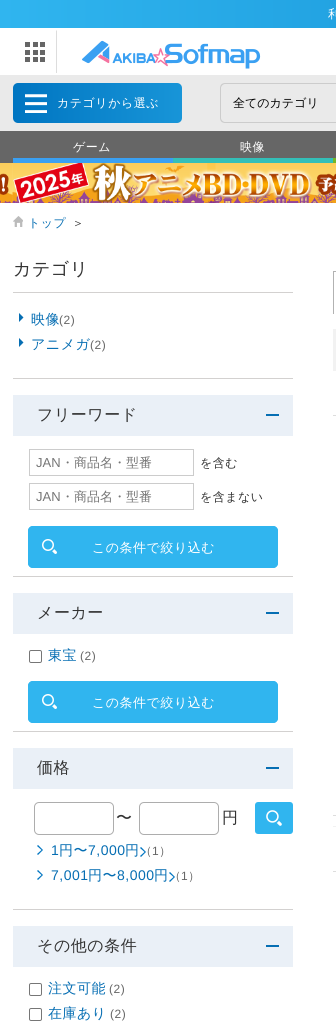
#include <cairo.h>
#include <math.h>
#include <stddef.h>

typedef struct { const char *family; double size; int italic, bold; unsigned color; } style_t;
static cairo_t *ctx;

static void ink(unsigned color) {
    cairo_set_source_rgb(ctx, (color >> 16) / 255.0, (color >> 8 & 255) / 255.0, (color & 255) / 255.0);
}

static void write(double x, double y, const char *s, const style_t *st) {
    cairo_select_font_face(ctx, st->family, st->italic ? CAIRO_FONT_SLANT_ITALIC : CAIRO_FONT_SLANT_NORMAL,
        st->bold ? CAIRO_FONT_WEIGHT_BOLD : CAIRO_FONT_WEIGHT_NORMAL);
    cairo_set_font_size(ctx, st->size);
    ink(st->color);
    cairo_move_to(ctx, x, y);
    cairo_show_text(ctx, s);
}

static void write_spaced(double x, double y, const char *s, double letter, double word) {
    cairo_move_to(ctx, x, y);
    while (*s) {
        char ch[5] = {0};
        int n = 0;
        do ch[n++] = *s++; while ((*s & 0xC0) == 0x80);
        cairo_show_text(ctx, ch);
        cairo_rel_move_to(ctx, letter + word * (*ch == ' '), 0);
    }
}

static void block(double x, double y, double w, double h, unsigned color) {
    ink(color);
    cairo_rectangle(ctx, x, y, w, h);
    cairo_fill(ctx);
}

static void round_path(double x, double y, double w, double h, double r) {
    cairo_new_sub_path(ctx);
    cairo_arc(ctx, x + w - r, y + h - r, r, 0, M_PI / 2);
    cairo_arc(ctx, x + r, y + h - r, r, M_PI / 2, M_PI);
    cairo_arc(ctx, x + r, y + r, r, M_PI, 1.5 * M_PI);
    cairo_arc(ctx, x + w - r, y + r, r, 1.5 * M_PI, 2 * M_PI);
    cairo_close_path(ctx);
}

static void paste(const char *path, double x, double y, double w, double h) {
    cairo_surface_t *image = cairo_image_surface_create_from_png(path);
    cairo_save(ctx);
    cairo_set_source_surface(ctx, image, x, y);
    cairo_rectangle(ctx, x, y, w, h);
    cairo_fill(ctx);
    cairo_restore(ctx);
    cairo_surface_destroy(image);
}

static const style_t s1 = {"WenQuanYi Zen Hei Medium", 12, 0, 0, 0x000000};
static const style_t s2 = {"Liberation Sans", 13, 0, 0, 0x757575};
static const style_t s3 = {"WenQuanYi Zen Hei Medium", 13, 0, 0, 0x757575};

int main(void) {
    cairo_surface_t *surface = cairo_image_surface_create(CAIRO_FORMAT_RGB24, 336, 1036);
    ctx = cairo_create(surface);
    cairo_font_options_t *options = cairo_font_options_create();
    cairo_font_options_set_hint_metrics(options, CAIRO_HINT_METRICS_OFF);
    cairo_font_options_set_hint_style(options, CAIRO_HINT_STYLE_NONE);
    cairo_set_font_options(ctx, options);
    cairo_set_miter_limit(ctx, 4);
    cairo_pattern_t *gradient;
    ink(0xffffff);
    cairo_paint(ctx);
    gradient = cairo_pattern_create_linear(0, 14, 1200, 14);
    cairo_pattern_add_color_stop_rgba(gradient, 0, 0.188, 0.71, 0.937, 1);
    cairo_pattern_add_color_stop_rgba(gradient, 1, 0, 0.459, 0.757, 1);
    cairo_set_source(ctx, gradient);
    cairo_pattern_destroy(gradient);
    cairo_rectangle(ctx, 0, 0, 336, 28);
    cairo_fill(ctx);
    cairo_select_font_face(ctx, "WenQuanYi Zen Hei Medium", CAIRO_FONT_SLANT_NORMAL, CAIRO_FONT_WEIGHT_NORMAL);
    cairo_set_font_size(ctx, 12);
    ink(0xffffff);
    write_spaced(328, 18, "利", 0.5, 0);
    ink(0xdddddd);
    cairo_new_path(ctx);
    cairo_move_to(ctx, 57, 30);
    cairo_line_to(ctx, 57, 73);
    cairo_line_to(ctx, 56, 73);
    cairo_line_to(ctx, 56, 31);
    cairo_close_path(ctx);
    cairo_fill(ctx);
    paste("pic1.png", 25, 42, 20, 20);
    paste("pic2.png", 82, 40, 179, 29);
    block(0, 75, 336, 56, 0xeaeaea);
    gradient = cairo_pattern_create_linear(182, 103, 13, 103);
    cairo_pattern_add_color_stop_rgba(gradient, 0, 0.094, 0.584, 0.847, 1);
    cairo_pattern_add_color_stop_rgba(gradient, 1, 0, 0.459, 0.757, 1);
    cairo_set_source(ctx, gradient);
    cairo_pattern_destroy(gradient);
    round_path(13, 83, 169, 40, 5);
    cairo_fill(ctx);
    paste("pic3.png", 25, 94, 22, 19);
    ink(0xffffff);
    write_spaced(57, 107, "カテゴリから選ぶ", 0.5, 0);
    ink(0xcccccc);
    cairo_set_fill_rule(ctx, CAIRO_FILL_RULE_EVEN_ODD);
    cairo_new_path(ctx);
    cairo_move_to(ctx, 225, 83);
    cairo_line_to(ctx, 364, 83);
    cairo_line_to(ctx, 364, 123);
    cairo_line_to(ctx, 225, 123);
    cairo_curve_to(ctx, 222, 123, 220, 121, 220, 118);
    cairo_line_to(ctx, 220, 88);
    cairo_curve_to(ctx, 220, 85, 222, 83, 225, 83);
    cairo_close_path(ctx);
    cairo_move_to(ctx, 225, 84);
    cairo_line_to(ctx, 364, 84);
    cairo_line_to(ctx, 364, 122);
    cairo_line_to(ctx, 225, 122);
    cairo_curve_to(ctx, 223, 122, 221, 120, 221, 118);
    cairo_line_to(ctx, 221, 88);
    cairo_curve_to(ctx, 221, 86, 223, 84, 225, 84);
    cairo_close_path(ctx);
    cairo_fill(ctx);
    write(233, 107, "全てのカテゴリ", &s1);
    block(0, 131, 336, 32, 0x666666);
    block(13, 158, 160, 5, 0x3aa0f2);
    ink(0xffffff);
    write_spaced(73, 151, "ゲーム", 0.5, 0);
    block(173, 158, 160, 5, 0x33bfb8);
    ink(0xffffff);
    write_spaced(240, 151, "映像", 0.5, 0);
    block(333, 158, 3, 5, 0x74b727);
    paste("pic4.png", 0, 163, 336, 40);
    paste("pic5.png", 13, 216, 10, 11);
    ink(0x066eb3);
    write_spaced(28, 227, "トップ", 0.5, 0);
    ink(0x333333);
    write_spaced(72, 227, "＞", 0.5, 0);
    block(13, 292, 280, 1, 0xd3d1d0);
    cairo_set_font_size(ctx, 18);
    ink(0x333333);
    write_spaced(13, 275, "カテゴリ", 0.5, 0);
    block(13, 378, 280, 1, 0xd3d1d0);
    ink(0x066eb3);
    cairo_set_fill_rule(ctx, CAIRO_FILL_RULE_WINDING);
    cairo_new_path(ctx);
    cairo_move_to(ctx, 23.5, 317.5);
    cairo_line_to(ctx, 19, 322);
    cairo_line_to(ctx, 19, 313);
    cairo_close_path(ctx);
    cairo_move_to(ctx, 23.5, 342.5);
    cairo_line_to(ctx, 19, 347);
    cairo_line_to(ctx, 19, 338);
    cairo_close_path(ctx);
    cairo_fill(ctx);
    cairo_set_font_size(ctx, 14);
    write_spaced(31, 324, "映像", 0.5, 0);
    cairo_select_font_face(ctx, "Liberation Sans", CAIRO_FONT_SLANT_NORMAL, CAIRO_FONT_WEIGHT_NORMAL);
    cairo_set_font_size(ctx, 12);
    ink(0x666666);
    write_spaced(59, 324, "(2)", 0.5, 0);
    cairo_select_font_face(ctx, "WenQuanYi Zen Hei Medium", CAIRO_FONT_SLANT_NORMAL, CAIRO_FONT_WEIGHT_NORMAL);
    cairo_set_font_size(ctx, 14);
    ink(0x066eb3);
    write_spaced(31, 349, "アニメガ", 0.5, 0);
    cairo_select_font_face(ctx, "Liberation Sans", CAIRO_FONT_SLANT_NORMAL, CAIRO_FONT_WEIGHT_NORMAL);
    cairo_set_font_size(ctx, 12);
    ink(0x666666);
    write_spaced(90, 349, "(2)", 0.5, 0);
    block(13, 395, 280, 41, 0xeaf0f7);
    block(266, 414, 13, 2, 0x066eb3);
    cairo_select_font_face(ctx, "WenQuanYi Zen Hei Medium", CAIRO_FONT_SLANT_NORMAL, CAIRO_FONT_WEIGHT_NORMAL);
    cairo_set_font_size(ctx, 16);
    ink(0x333333);
    write_spaced(37, 420, "フリーワード", 0.5, 0);
    block(13, 576, 280, 1, 0xd3d1d0);
    cairo_rectangle(ctx, 29.5, 449.5, 164, 26);
    ink(0xcccccc);
    cairo_set_line_width(ctx, 1);
    cairo_stroke(ctx);
    write(36, 467, "JAN", &s2);
    write(61, 467, "・商品名・型番", &s3);
    cairo_set_font_size(ctx, 12);
    ink(0x333333);
    write_spaced(200, 467, "を含む", 0.5, 0);
    cairo_rectangle(ctx, 29.5, 483.5, 164, 26);
    ink(0xcccccc);
    cairo_stroke(ctx);
    write(36, 501, "JAN", &s2);
    write(61, 501, "・商品名・型番", &s3);
    cairo_set_font_size(ctx, 12);
    ink(0x333333);
    write_spaced(200, 501, "を含まない", 0.5, 0);
    ink(0x30b5ef);
    round_path(28, 526, 250, 42, 5);
    cairo_fill(ctx);
    paste("pic6.png", 42, 539, 15, 15);
    round_path(28.5, 526.5, 249, 41, 4.5);
    cairo_stroke(ctx);
    cairo_set_font_size(ctx, 13);
    ink(0xffffff);
    write_spaced(92, 552, "この条件で絞り込む", 0.5, 0);
    block(13, 593, 280, 41, 0xeaf0f7);
    block(266, 612, 13, 2, 0x066eb3);
    cairo_set_font_size(ctx, 16);
    ink(0x333333);
    write_spaced(37, 618, "メーカー", 0.5, 0);
    block(13, 731, 280, 1, 0xd3d1d0);
    round_path(29.5, 650.5, 12, 12, 1.5);
    ink(0x767676);
    cairo_stroke(ctx);
    cairo_set_font_size(ctx, 14);
    ink(0x066eb3);
    write_spaced(48, 660, "東宝", 0.5, 0);
    cairo_select_font_face(ctx, "Liberation Sans", CAIRO_FONT_SLANT_NORMAL, CAIRO_FONT_WEIGHT_NORMAL);
    cairo_set_font_size(ctx, 12);
    ink(0x666666);
    write_spaced(80, 660, "(2)", 0.5, 0);
    ink(0x30b5ef);
    round_path(28, 681, 250, 42, 5);
    cairo_fill(ctx);
    paste("pic6.png", 42, 694, 15, 15);
    round_path(28.5, 681.5, 249, 41, 4.5);
    cairo_stroke(ctx);
    cairo_select_font_face(ctx, "WenQuanYi Zen Hei Medium", CAIRO_FONT_SLANT_NORMAL, CAIRO_FONT_WEIGHT_NORMAL);
    cairo_set_font_size(ctx, 13);
    ink(0xffffff);
    write_spaced(92, 707, "この条件で絞り込む", 0.5, 0);
    block(13, 748, 280, 41, 0xeaf0f7);
    block(266, 767, 13, 2, 0x066eb3);
    cairo_set_font_size(ctx, 16);
    ink(0x333333);
    write_spaced(37, 773, "価格", 0.5, 0);
    block(13, 909, 280, 1, 0xd3d1d0);
    round_path(34.5, 802.5, 79, 32, 4.5);
    ink(0xadadad);
    cairo_stroke(ctx);
    ink(0x333333);
    write_spaced(116, 823, "〜", 0.5, 0);
    round_path(139.5, 802.5, 79, 32, 4.5);
    ink(0xadadad);
    cairo_stroke(ctx);
    ink(0x333333);
    write_spaced(222, 823, "円", 0.5, 0);
    paste("pic7.png", 255, 802, 38, 32);
    cairo_select_font_face(ctx, "Liberation Sans", CAIRO_FONT_SLANT_NORMAL, CAIRO_FONT_WEIGHT_NORMAL);
    cairo_set_font_size(ctx, 14);
    ink(0x066eb3);
    write_spaced(51, 855, "1", 0.5, 0);
    ink(0x0075c1);
    cairo_new_path(ctx);
    cairo_move_to(ctx, 38, 845);
    cairo_line_to(ctx, 37, 846);
    cairo_line_to(ctx, 41.5, 850);
    cairo_line_to(ctx, 37, 854);
    cairo_line_to(ctx, 38, 855);
    cairo_line_to(ctx, 43, 850);
    cairo_close_path(ctx);
    cairo_fill(ctx);
    cairo_select_font_face(ctx, "WenQuanYi Zen Hei Medium", CAIRO_FONT_SLANT_NORMAL, CAIRO_FONT_WEIGHT_NORMAL);
    ink(0x066eb3);
    write_spaced(59, 855, "円〜", 0.5, 0);
    cairo_select_font_face(ctx, "Liberation Sans", CAIRO_FONT_SLANT_NORMAL, CAIRO_FONT_WEIGHT_NORMAL);
    write_spaced(88, 855, "7,000", 0.5, 0);
    cairo_select_font_face(ctx, "WenQuanYi Zen Hei Medium", CAIRO_FONT_SLANT_NORMAL, CAIRO_FONT_WEIGHT_NORMAL);
    write_spaced(125, 855, "円", 0.5, 0);
    cairo_set_font_size(ctx, 12);
    ink(0x666666);
    write_spaced(140, 855, "（", 0.5, 0);
    ink(0x0075c1);
    cairo_new_path(ctx);
    cairo_move_to(ctx, 141, 847);
    cairo_line_to(ctx, 140, 848);
    cairo_line_to(ctx, 144.5, 852);
    cairo_line_to(ctx, 140, 856);
    cairo_line_to(ctx, 141, 857);
    cairo_line_to(ctx, 146, 852);
    cairo_close_path(ctx);
    cairo_fill(ctx);
    cairo_select_font_face(ctx, "Liberation Sans", CAIRO_FONT_SLANT_NORMAL, CAIRO_FONT_WEIGHT_NORMAL);
    ink(0x666666);
    write_spaced(152, 855, "1", 0.5, 0);
    cairo_select_font_face(ctx, "WenQuanYi Zen Hei Medium", CAIRO_FONT_SLANT_NORMAL, CAIRO_FONT_WEIGHT_NORMAL);
    write_spaced(159, 855, "）", 0.5, 0);
    cairo_select_font_face(ctx, "Liberation Sans", CAIRO_FONT_SLANT_NORMAL, CAIRO_FONT_WEIGHT_NORMAL);
    cairo_set_font_size(ctx, 14);
    ink(0x066eb3);
    write_spaced(51, 880, "7,001", 0.5, 0);
    ink(0x0075c1);
    cairo_new_path(ctx);
    cairo_move_to(ctx, 38, 870);
    cairo_line_to(ctx, 37, 871);
    cairo_line_to(ctx, 41.5, 875);
    cairo_line_to(ctx, 37, 879);
    cairo_line_to(ctx, 38, 880);
    cairo_line_to(ctx, 43, 875);
    cairo_close_path(ctx);
    cairo_fill(ctx);
    cairo_select_font_face(ctx, "WenQuanYi Zen Hei Medium", CAIRO_FONT_SLANT_NORMAL, CAIRO_FONT_WEIGHT_NORMAL);
    ink(0x066eb3);
    write_spaced(88, 880, "円〜", 0.5, 0);
    cairo_select_font_face(ctx, "Liberation Sans", CAIRO_FONT_SLANT_NORMAL, CAIRO_FONT_WEIGHT_NORMAL);
    write_spaced(117, 880, "8,000", 0.5, 0);
    cairo_select_font_face(ctx, "WenQuanYi Zen Hei Medium", CAIRO_FONT_SLANT_NORMAL, CAIRO_FONT_WEIGHT_NORMAL);
    write_spaced(154, 880, "円", 0.5, 0);
    cairo_set_font_size(ctx, 12);
    ink(0x666666);
    write_spaced(169, 880, "（", 0.5, 0);
    ink(0x0075c1);
    cairo_new_path(ctx);
    cairo_move_to(ctx, 170, 872);
    cairo_line_to(ctx, 169, 873);
    cairo_line_to(ctx, 173.5, 877);
    cairo_line_to(ctx, 169, 881);
    cairo_line_to(ctx, 170, 882);
    cairo_line_to(ctx, 175, 877);
    cairo_close_path(ctx);
    cairo_fill(ctx);
    cairo_select_font_face(ctx, "Liberation Sans", CAIRO_FONT_SLANT_NORMAL, CAIRO_FONT_WEIGHT_NORMAL);
    ink(0x666666);
    write_spaced(181, 880, "1", 0.5, 0);
    cairo_select_font_face(ctx, "WenQuanYi Zen Hei Medium", CAIRO_FONT_SLANT_NORMAL, CAIRO_FONT_WEIGHT_NORMAL);
    write_spaced(188, 880, "）", 0.5, 0);
    block(13, 926, 280, 41, 0xeaf0f7);
    block(266, 945, 13, 2, 0x066eb3);
    cairo_set_font_size(ctx, 16);
    ink(0x333333);
    write_spaced(37, 951, "その他の条件", 0.5, 0);
    round_path(29.5, 983.5, 12, 12, 1.5);
    ink(0x767676);
    cairo_stroke(ctx);
    cairo_set_font_size(ctx, 14);
    ink(0x066eb3);
    write_spaced(48, 993, "注文可能", 0.5, 0);
    cairo_select_font_face(ctx, "Liberation Sans", CAIRO_FONT_SLANT_NORMAL, CAIRO_FONT_WEIGHT_NORMAL);
    cairo_set_font_size(ctx, 12);
    ink(0x666666);
    write_spaced(109, 993, "(2)", 0.5, 0);
    round_path(29.5, 1008.5, 12, 12, 1.5);
    ink(0x767676);
    cairo_stroke(ctx);
    cairo_select_font_face(ctx, "WenQuanYi Zen Hei Medium", CAIRO_FONT_SLANT_NORMAL, CAIRO_FONT_WEIGHT_NORMAL);
    cairo_set_font_size(ctx, 14);
    ink(0x066eb3);
    write_spaced(48, 1018, "在庫あり", 0.5, 0);
    cairo_select_font_face(ctx, "Liberation Sans", CAIRO_FONT_SLANT_NORMAL, CAIRO_FONT_WEIGHT_NORMAL);
    cairo_set_font_size(ctx, 12);
    ink(0x666666);
    write_spaced(110, 1018, "(2)", 0.5, 0);
    block(333, 271, 3, 1, 0xb2b2b2);
    block(333, 271, 1, 43, 0xb2b2b2);
    block(333, 329, 3, 42, 0xf2f2f2);
    block(333, 415, 3, 1, 0xdddddd);
    block(333, 815, 3, 1, 0xdddddd);
    block(333, 826, 3, 1, 0xf2f2f2);
    block(333, 871, 3, 1, 0xdddddd);
    cairo_surface_write_to_png(surface, "screenshot.png");
    cairo_font_options_destroy(options);
    cairo_destroy(ctx);
    cairo_surface_destroy(surface);
    return 0;
}
